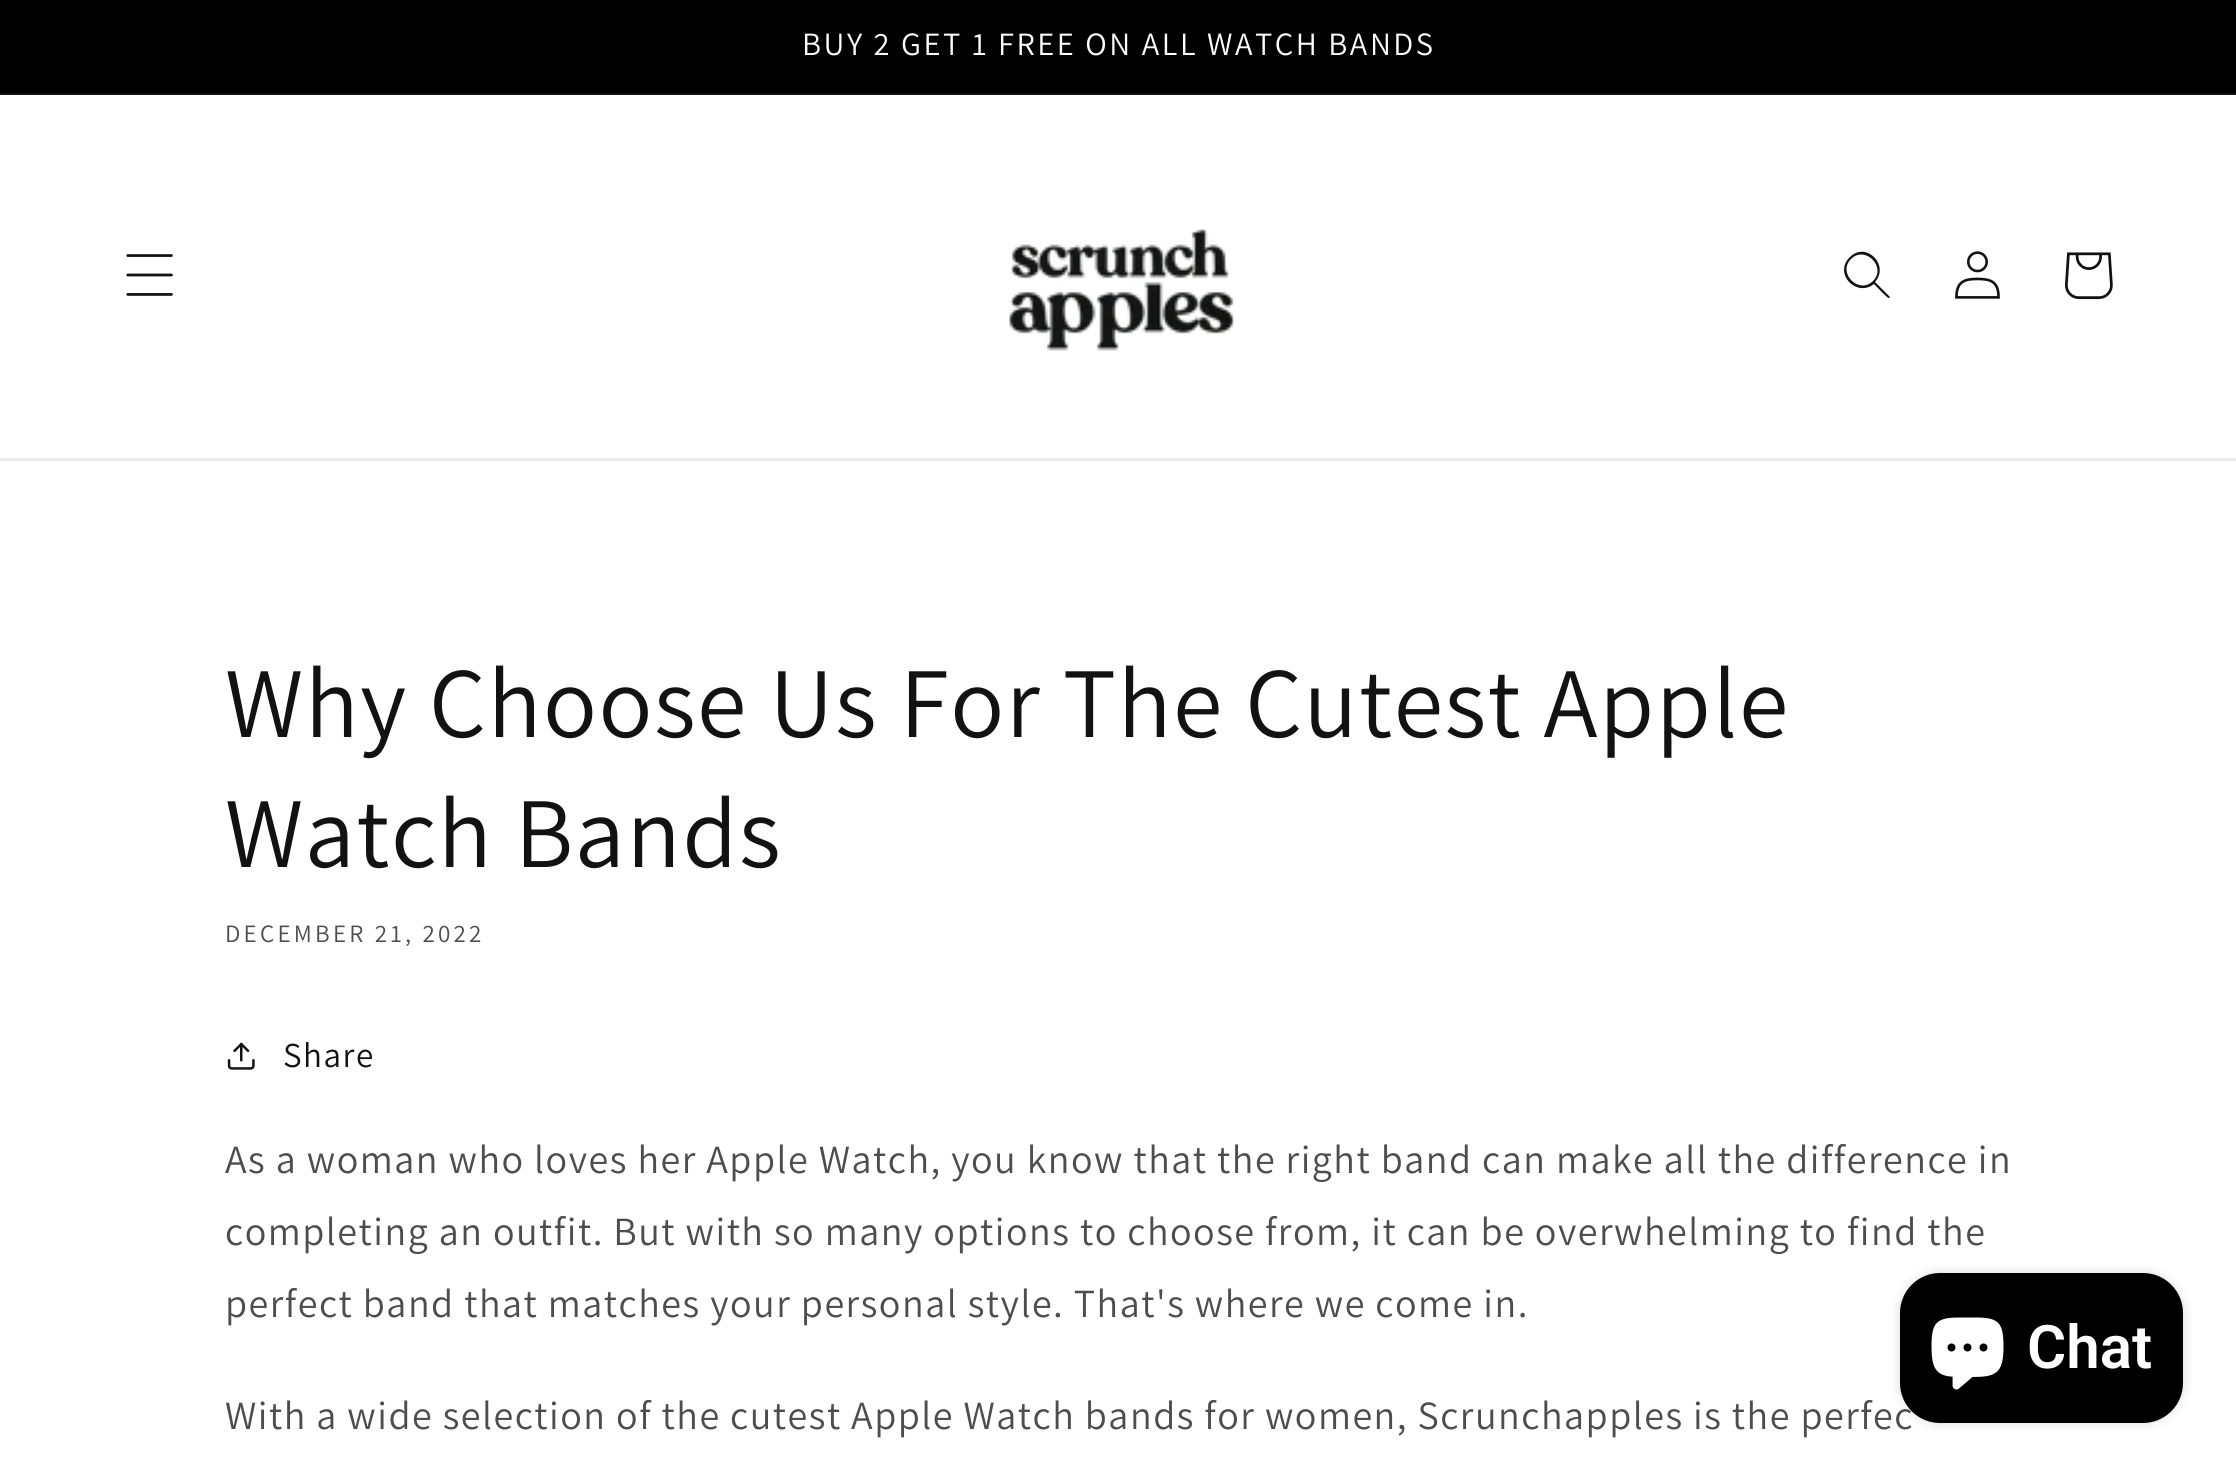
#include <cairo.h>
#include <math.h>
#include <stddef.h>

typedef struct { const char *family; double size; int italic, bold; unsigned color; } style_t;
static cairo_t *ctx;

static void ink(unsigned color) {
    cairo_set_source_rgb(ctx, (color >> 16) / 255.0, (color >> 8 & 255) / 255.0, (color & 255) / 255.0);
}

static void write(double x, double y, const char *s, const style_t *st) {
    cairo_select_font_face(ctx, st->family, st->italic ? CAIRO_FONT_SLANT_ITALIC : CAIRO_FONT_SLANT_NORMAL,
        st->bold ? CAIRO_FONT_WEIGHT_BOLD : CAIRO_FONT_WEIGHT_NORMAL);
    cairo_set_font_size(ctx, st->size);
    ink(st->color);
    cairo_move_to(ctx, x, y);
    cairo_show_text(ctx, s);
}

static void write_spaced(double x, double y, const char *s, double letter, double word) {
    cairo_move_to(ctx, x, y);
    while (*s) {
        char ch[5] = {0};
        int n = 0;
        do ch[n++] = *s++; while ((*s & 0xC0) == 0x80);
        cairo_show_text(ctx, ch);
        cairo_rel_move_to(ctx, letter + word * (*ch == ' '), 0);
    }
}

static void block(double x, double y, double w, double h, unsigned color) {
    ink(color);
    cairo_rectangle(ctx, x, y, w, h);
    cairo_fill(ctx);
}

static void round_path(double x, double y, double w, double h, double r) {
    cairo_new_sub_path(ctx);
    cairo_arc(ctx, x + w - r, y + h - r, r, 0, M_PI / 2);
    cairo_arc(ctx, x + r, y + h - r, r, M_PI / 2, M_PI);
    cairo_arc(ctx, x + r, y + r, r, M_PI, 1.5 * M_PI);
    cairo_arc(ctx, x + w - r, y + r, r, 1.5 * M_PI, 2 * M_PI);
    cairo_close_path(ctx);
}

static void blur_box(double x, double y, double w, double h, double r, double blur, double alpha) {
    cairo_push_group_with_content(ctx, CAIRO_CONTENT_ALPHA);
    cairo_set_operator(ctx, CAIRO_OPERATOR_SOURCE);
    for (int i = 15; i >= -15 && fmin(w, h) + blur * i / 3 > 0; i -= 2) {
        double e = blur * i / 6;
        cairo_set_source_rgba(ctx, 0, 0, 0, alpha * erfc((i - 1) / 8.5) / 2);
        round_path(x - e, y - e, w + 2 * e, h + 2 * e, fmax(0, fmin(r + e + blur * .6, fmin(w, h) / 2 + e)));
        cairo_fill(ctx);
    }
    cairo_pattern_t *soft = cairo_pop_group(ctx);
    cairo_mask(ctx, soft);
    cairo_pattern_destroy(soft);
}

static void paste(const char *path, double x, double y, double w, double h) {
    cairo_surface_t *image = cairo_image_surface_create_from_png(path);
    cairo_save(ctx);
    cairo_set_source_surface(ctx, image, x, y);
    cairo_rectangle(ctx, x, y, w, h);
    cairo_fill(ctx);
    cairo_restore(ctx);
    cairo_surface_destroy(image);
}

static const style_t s1 = {"Roboto SemiBold", 60, 0, 0, 0xffffff};

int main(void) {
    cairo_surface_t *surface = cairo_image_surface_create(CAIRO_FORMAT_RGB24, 2236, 1475);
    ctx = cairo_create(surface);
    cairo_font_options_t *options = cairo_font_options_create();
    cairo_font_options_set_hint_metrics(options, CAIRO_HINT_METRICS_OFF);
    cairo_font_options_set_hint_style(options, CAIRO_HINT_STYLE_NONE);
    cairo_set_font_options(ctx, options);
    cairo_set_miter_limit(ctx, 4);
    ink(0xffffff);
    cairo_paint(ctx);
    block(0, 0, 2236, 93, 0x000000);
    block(0, 93, 2236, 2, 0x141414);
    cairo_select_font_face(ctx, "Assistant", CAIRO_FONT_SLANT_NORMAL, CAIRO_FONT_WEIGHT_NORMAL);
    cairo_set_font_size(ctx, 32.5);
    ink(0xffffff);
    write_spaced(802, 55, "BUY 2 GET 1 FREE ON ALL WATCH BANDS", 2.5, 0);
    block(0, 458, 2236, 3, 0xececec);
    paste("pic1.png", 126, 254, 47, 42);
    paste("pic2.png", 1008, 229, 227, 122);
    ink(0x121212);
    cairo_set_fill_rule(ctx, CAIRO_FILL_RULE_EVEN_ODD);
    cairo_new_path(ctx);
    cairo_move_to(ctx, 1873, 281);
    cairo_curve_to(ctx, 1859, 295, 1837, 273, 1851, 259);
    cairo_curve_to(ctx, 1865, 245, 1887, 267, 1873, 281);
    cairo_close_path(ctx);
    cairo_move_to(ctx, 1874, 284);
    cairo_curve_to(ctx, 1856, 298, 1833, 273, 1850, 257);
    cairo_curve_to(ctx, 1866, 241, 1890, 265, 1875, 282);
    cairo_line_to(ctx, 1890, 297);
    cairo_line_to(ctx, 1889, 298);
    cairo_curve_to(ctx, 1888, 299, 1876, 286, 1874, 284);
    cairo_close_path(ctx);
    cairo_fill(ctx);
    paste("pic3.png", 1955, 251, 45, 48);
    paste("pic4.png", 2065, 252, 48, 48);
    cairo_set_font_size(ctx, 100);
    write_spaced(225, 737, "Why Choose Us For The Cutest Apple", 1.5, 0);
    write_spaced(225, 867, "Watch Bands", 1.5, 0);
    cairo_set_font_size(ctx, 25);
    ink(0x4d4d4d);
    write_spaced(225, 942, "DECEMBER 21, 2022", 3.25, 0);
    paste("pic5.png", 227, 1042, 28, 28);
    cairo_set_font_size(ctx, 35);
    ink(0x121212);
    write_spaced(283, 1067, "Share", 1.5, 0);
    cairo_set_font_size(ctx, 40);
    ink(0x4d4d4d);
    write_spaced(225, 1173, "As a woman who loves her Apple Watch, you know that the right band can make all the difference in", 1.5, 0);
    write_spaced(225, 1245, "completing an outfit. But with so many options to choose from, it can be overwhelming to find the", 1.5, 0);
    write_spaced(225, 1317, "perfect band that matches your personal style. That's where we come in.", 1.5, 0);
    write_spaced(225, 1429, "With a wide selection of the cutest Apple Watch bands for women, Scrunchapples is the perfec", 1.5, 0);
    ink(0x000000);
    blur_box(1900, 1273, 283, 150, 40, 6, 0.15);
    ink(0x000000);
    round_path(1900, 1273, 283, 150, 40);
    cairo_fill(ctx);
    paste("pic6.png", 1931, 1317, 73, 73);
    write(2027, 1368, "Chat", &s1);
    cairo_surface_write_to_png(surface, "screenshot.png");
    cairo_font_options_destroy(options);
    cairo_destroy(ctx);
    cairo_surface_destroy(surface);
    return 0;
}
